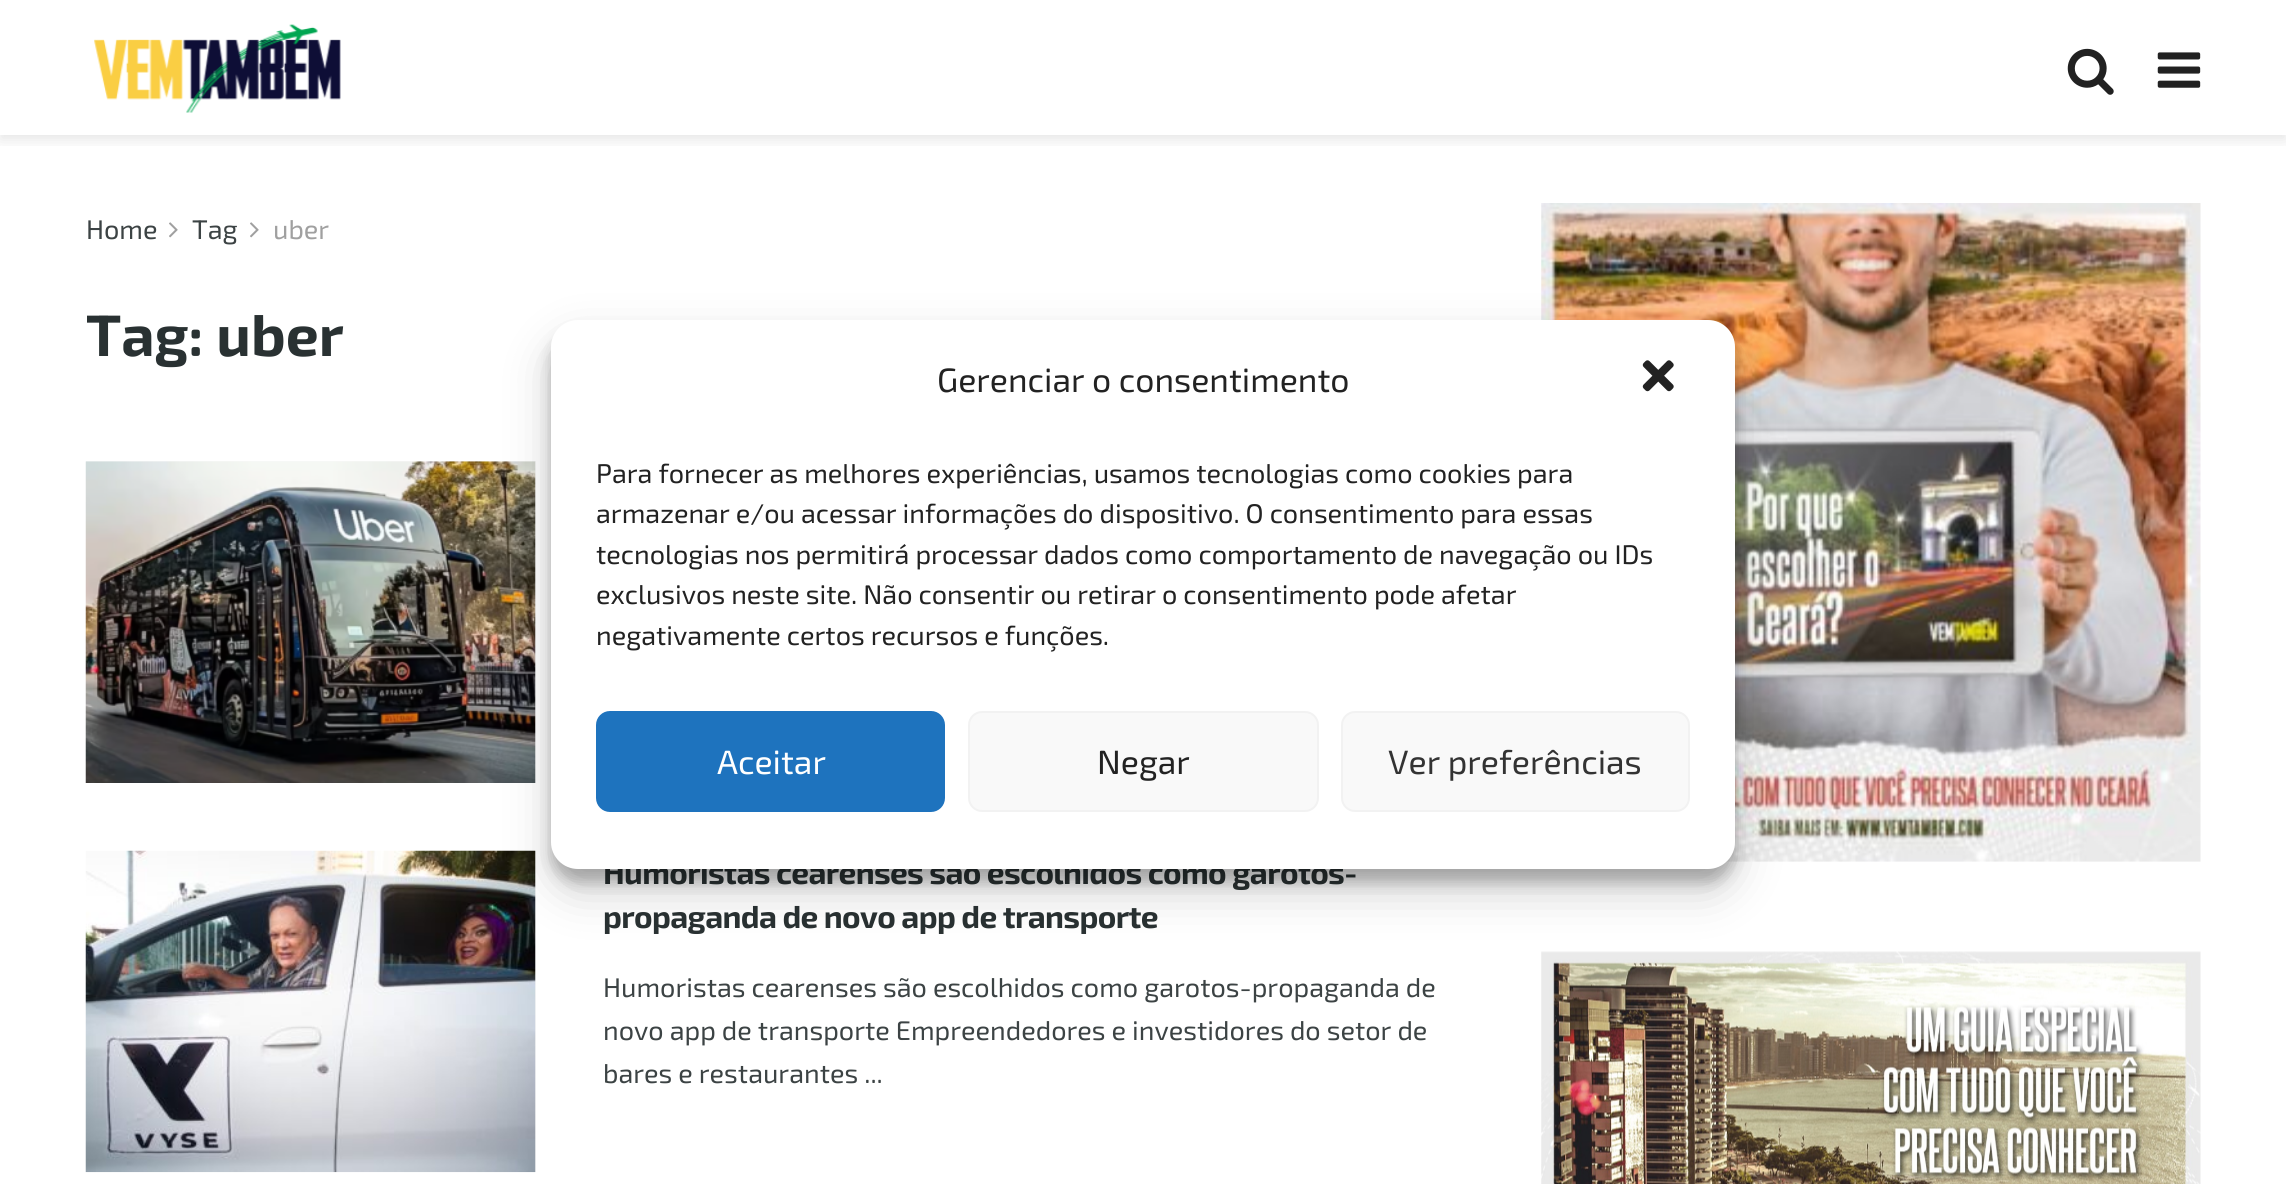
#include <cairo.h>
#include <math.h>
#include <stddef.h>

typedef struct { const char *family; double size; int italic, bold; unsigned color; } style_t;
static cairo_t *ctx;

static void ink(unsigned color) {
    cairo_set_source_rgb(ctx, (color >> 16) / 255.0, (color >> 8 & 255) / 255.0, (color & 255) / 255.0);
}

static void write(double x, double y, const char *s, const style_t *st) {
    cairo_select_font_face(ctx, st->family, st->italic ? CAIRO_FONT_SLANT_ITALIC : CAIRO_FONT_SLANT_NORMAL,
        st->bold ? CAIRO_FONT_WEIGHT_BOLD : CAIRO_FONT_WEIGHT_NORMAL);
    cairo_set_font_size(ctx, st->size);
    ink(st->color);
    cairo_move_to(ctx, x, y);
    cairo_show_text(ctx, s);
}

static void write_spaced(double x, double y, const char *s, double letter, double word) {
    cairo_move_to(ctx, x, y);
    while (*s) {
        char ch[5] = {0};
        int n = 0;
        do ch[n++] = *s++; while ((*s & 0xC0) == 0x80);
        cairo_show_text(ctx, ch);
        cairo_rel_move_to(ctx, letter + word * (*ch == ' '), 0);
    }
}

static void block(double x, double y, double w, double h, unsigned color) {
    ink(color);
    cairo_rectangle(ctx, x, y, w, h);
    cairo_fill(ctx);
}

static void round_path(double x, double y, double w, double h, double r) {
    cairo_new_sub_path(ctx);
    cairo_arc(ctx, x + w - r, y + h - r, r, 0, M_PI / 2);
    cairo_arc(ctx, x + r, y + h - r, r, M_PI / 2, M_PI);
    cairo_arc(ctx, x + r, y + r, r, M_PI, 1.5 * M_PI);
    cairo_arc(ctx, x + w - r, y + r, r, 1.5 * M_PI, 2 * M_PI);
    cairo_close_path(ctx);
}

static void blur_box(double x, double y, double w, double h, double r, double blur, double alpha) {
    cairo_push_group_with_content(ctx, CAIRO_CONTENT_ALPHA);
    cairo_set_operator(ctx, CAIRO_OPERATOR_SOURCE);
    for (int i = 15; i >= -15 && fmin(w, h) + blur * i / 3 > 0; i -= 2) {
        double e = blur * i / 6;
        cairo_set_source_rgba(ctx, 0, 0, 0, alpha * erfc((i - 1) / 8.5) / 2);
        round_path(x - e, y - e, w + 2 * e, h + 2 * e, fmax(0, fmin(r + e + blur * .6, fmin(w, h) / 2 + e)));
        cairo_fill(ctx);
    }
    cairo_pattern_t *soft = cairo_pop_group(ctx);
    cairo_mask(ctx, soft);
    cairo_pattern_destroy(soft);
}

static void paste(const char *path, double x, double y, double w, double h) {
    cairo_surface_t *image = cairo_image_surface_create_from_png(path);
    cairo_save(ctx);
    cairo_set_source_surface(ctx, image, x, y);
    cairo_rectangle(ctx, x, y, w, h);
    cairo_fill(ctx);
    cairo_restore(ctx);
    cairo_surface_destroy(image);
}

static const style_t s1 = {"Exo 2", 27, 0, 0, 0x3c4344};
static const style_t s2 = {"Exo 2", 27, 0, 0, 0xa0a0a0};
static const style_t s3 = {"Exo 2", 58.5, 0, 1, 0x293132};
static const style_t s4 = {"Exo 2", 33.75, 0, 0, 0x222222};
static const style_t s5 = {"Exo 2", 27, 0, 0, 0x222222};
static const style_t s6 = {"Exo 2", 33.75, 0, 0, 0xffffff};
static const style_t s7 = {"Exo 2", 33.75, 0, 0, 0x333333};

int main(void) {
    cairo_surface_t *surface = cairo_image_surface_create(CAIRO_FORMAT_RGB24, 2286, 1184);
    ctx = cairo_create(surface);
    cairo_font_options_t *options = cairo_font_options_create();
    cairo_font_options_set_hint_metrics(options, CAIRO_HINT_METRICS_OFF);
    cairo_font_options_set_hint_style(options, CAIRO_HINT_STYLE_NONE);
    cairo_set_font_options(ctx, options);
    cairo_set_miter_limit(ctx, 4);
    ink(0xffffff);
    cairo_paint(ctx);
    cairo_save(ctx);
    cairo_rectangle(ctx, 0, 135, 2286, 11);
    cairo_clip(ctx);
    ink(0x000000);
    blur_box(0, 5, 2286, 135, 0, 7, 0.1);
    cairo_restore(ctx);
    paste("pic1.png", 94, 24, 247, 89);
    paste("pic2.png", 2067, 48, 47, 47);
    paste("pic3.png", 2157, 52, 44, 36);
    write(86, 239, "Home", &s1);
    paste("pic4.png", 169, 222, 9, 16);
    write(192, 239, "Tag", &s1);
    paste("pic4.png", 250, 222, 9, 16);
    write(273, 239, "uber", &s2);
    write(86, 356, "Tag: uber", &s3);
    block(86, 461, 450, 322, 0xf7f7f7);
    paste("pic5.png", 85, 461, 451, 322);
    block(535, 851, 1, 321, 0xf7f7f7);
    paste("pic6.png", 85, 850, 451, 323);
    cairo_set_font_size(ctx, 31.5);
    ink(0x293132);
    write_spaced(603, 884, "Humoristas cearenses são escolhidos como garotos-", -0.65, 0);
    write_spaced(603, 928, "propaganda de novo app de transporte", -0.65, 0);
    write(603, 997, "Humoristas cearenses são escolhidos como garotos-propaganda de", &s1);
    write(603, 1040, "novo app de transporte Empreendedores e investidores do setor de", &s1);
    write(603, 1083, "bares e restaurantes ...", &s1);
    paste("pic7.png", 1541, 203, 660, 659);
    paste("pic8.png", 1541, 951, 660, 233);
    ink(0x000000);
    blur_box(551, 333, 1184, 549, 27, 7, 0.23);
    blur_box(551, 342, 1184, 549, 27, 22.5, 0.19);
    ink(0xffffff);
    round_path(551, 320, 1184, 549, 27);
    cairo_fill(ctx);
    write(937, 392, "Gerenciar o consentimento", &s4);
    paste("pic9.png", 1642, 360, 32, 32);
    write(596, 483, "Para fornecer as melhores experiências, usamos tecnologias como cookies para", &s5);
    write(596, 523, "armazenar e/ou acessar informações do dispositivo. O consentimento para essas", &s5);
    write(596, 564, "tecnologias nos permitirá processar dados como comportamento de navegação ou IDs", &s5);
    write(596, 604, "exclusivos neste site. Não consentir ou retirar o consentimento pode afetar", &s5);
    write(596, 645, "negativamente certos recursos e funções.", &s5);
    ink(0x1e73be);
    round_path(597, 712, 347, 99, 13);
    cairo_fill_preserve(ctx);
    cairo_stroke(ctx);
    write(717, 774, "Aceitar", &s6);
    ink(0xf9f9f9);
    round_path(969, 712, 349, 99, 13);
    cairo_fill_preserve(ctx);
    ink(0xf2f2f2);
    cairo_stroke(ctx);
    write(1097, 774, "Negar", &s4);
    ink(0xf9f9f9);
    round_path(1342, 712, 347, 99, 13);
    cairo_fill_preserve(ctx);
    ink(0xf2f2f2);
    cairo_stroke(ctx);
    write(1388, 774, "Ver preferências", &s7);
    cairo_surface_write_to_png(surface, "screenshot.png");
    cairo_font_options_destroy(options);
    cairo_destroy(ctx);
    cairo_surface_destroy(surface);
    return 0;
}
